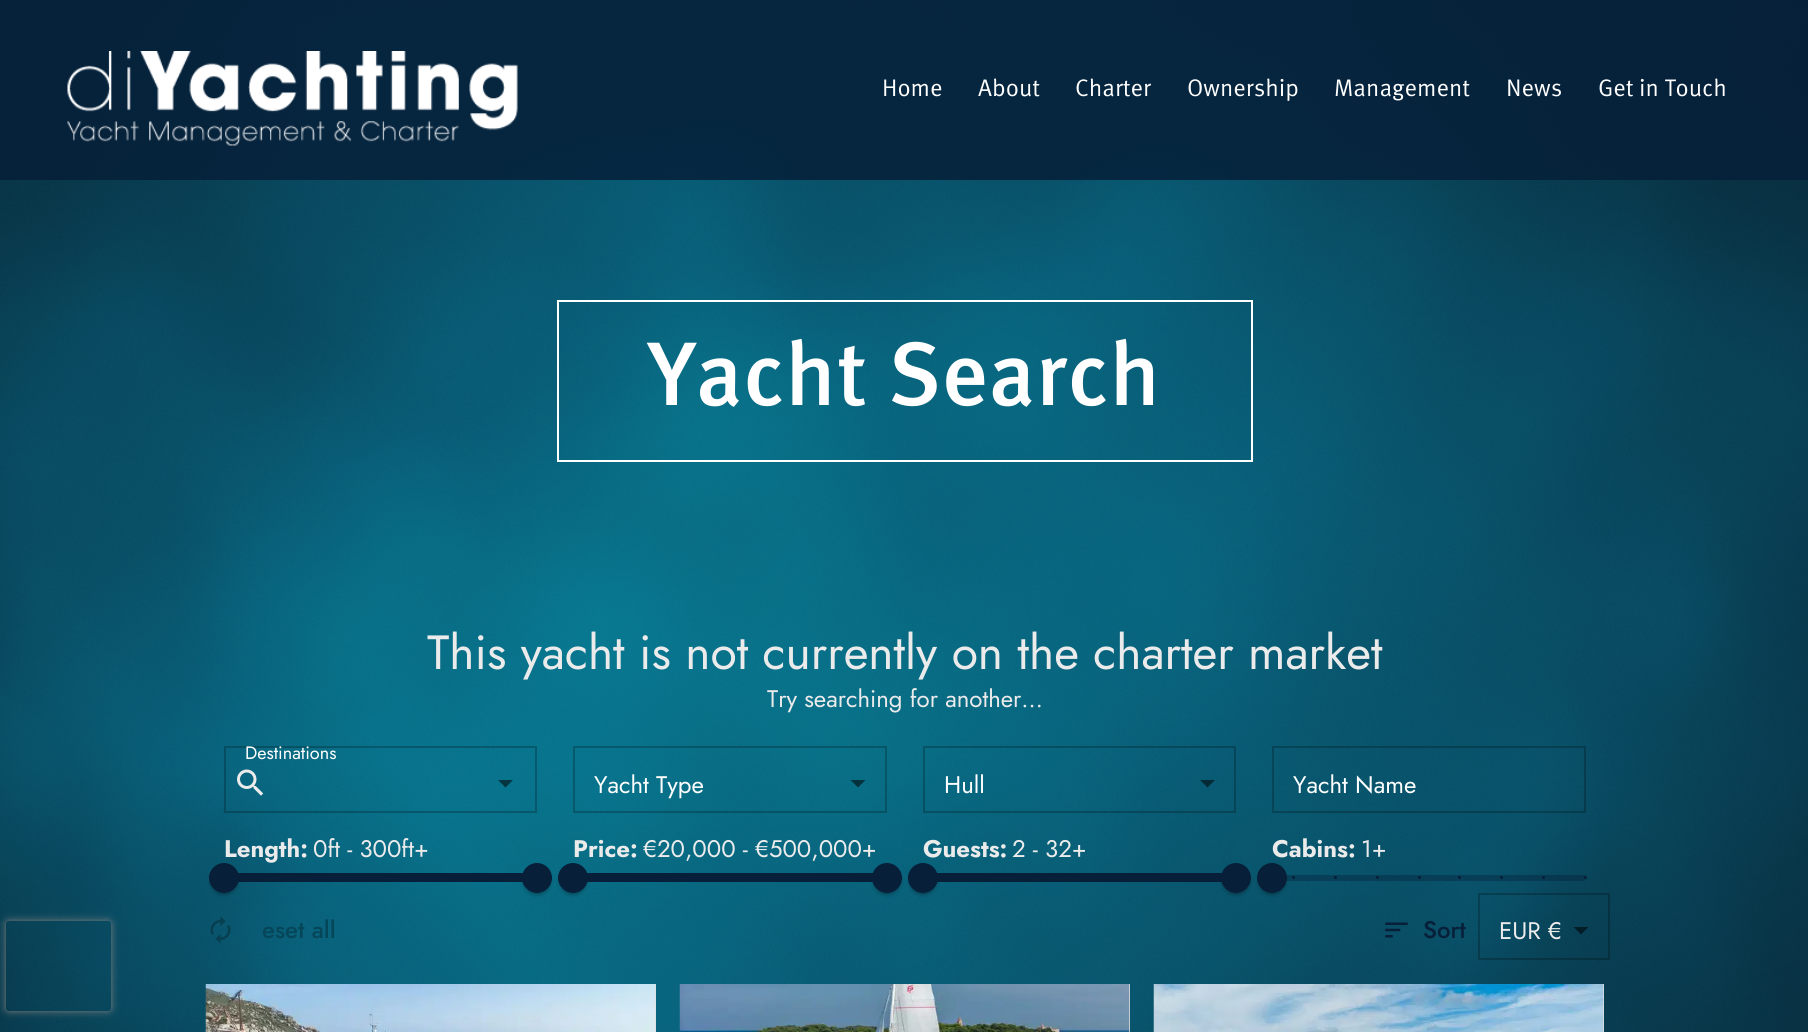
#include <cairo.h>
#include <math.h>
#include <stddef.h>

typedef struct { const char *family; double size; int italic, bold; unsigned color; } style_t;
static cairo_t *ctx;

static void ink(unsigned color) {
    cairo_set_source_rgb(ctx, (color >> 16) / 255.0, (color >> 8 & 255) / 255.0, (color & 255) / 255.0);
}

static void write(double x, double y, const char *s, const style_t *st) {
    cairo_select_font_face(ctx, st->family, st->italic ? CAIRO_FONT_SLANT_ITALIC : CAIRO_FONT_SLANT_NORMAL,
        st->bold ? CAIRO_FONT_WEIGHT_BOLD : CAIRO_FONT_WEIGHT_NORMAL);
    cairo_set_font_size(ctx, st->size);
    ink(st->color);
    cairo_move_to(ctx, x, y);
    cairo_show_text(ctx, s);
}

static void block(double x, double y, double w, double h, unsigned color) {
    ink(color);
    cairo_rectangle(ctx, x, y, w, h);
    cairo_fill(ctx);
}

static void round_path(double x, double y, double w, double h, double r) {
    cairo_new_sub_path(ctx);
    cairo_arc(ctx, x + w - r, y + h - r, r, 0, M_PI / 2);
    cairo_arc(ctx, x + r, y + h - r, r, M_PI / 2, M_PI);
    cairo_arc(ctx, x + r, y + r, r, M_PI, 1.5 * M_PI);
    cairo_arc(ctx, x + w - r, y + r, r, 1.5 * M_PI, 2 * M_PI);
    cairo_close_path(ctx);
}

static void blur_box(double x, double y, double w, double h, double r, double blur, double alpha) {
    cairo_push_group_with_content(ctx, CAIRO_CONTENT_ALPHA);
    cairo_set_operator(ctx, CAIRO_OPERATOR_SOURCE);
    for (int i = 15; i >= -15 && fmin(w, h) + blur * i / 3 > 0; i -= 2) {
        double e = blur * i / 6;
        cairo_set_source_rgba(ctx, 0, 0, 0, alpha * erfc((i - 1) / 8.5) / 2);
        round_path(x - e, y - e, w + 2 * e, h + 2 * e, fmax(0, fmin(r + e + blur * .6, fmin(w, h) / 2 + e)));
        cairo_fill(ctx);
    }
    cairo_pattern_t *soft = cairo_pop_group(ctx);
    cairo_mask(ctx, soft);
    cairo_pattern_destroy(soft);
}

static void paste(const char *path, double x, double y, double w, double h) {
    cairo_surface_t *image = cairo_image_surface_create_from_png(path);
    cairo_save(ctx);
    cairo_set_source_surface(ctx, image, x, y);
    cairo_rectangle(ctx, x, y, w, h);
    cairo_fill(ctx);
    cairo_restore(ctx);
    cairo_surface_destroy(image);
}

static const style_t s1 = {"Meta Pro", 24, 0, 0, 0xffffff};
static const style_t s2 = {"Meta Pro Medium", 90, 0, 0, 0xffffff};
static const style_t s3 = {"Jost", 48, 0, 0, 0xebebeb};
static const style_t s4 = {"Jost", 24, 0, 0, 0xebebeb};
static const style_t s5 = {"Jost", 18, 0, 0, 0xffffff};
static const style_t s6 = {"Jost", 24, 0, 0, 0xffffff};
static const style_t s7 = {"Jost", 24, 0, 1, 0xebebeb};
static const style_t s8 = {"Jost Medium", 24, 0, 0, 0x064659};
static const style_t s9 = {"Jost Medium", 24, 0, 0, 0x071f39};

int main(void) {
    cairo_surface_t *surface = cairo_image_surface_create(CAIRO_FORMAT_RGB24, 1808, 1032);
    ctx = cairo_create(surface);
    cairo_font_options_t *options = cairo_font_options_create();
    cairo_font_options_set_hint_metrics(options, CAIRO_HINT_METRICS_OFF);
    cairo_font_options_set_hint_style(options, CAIRO_HINT_STYLE_NONE);
    cairo_set_font_options(ctx, options);
    cairo_set_miter_limit(ctx, 4);
    ink(0xffffff);
    cairo_paint(ctx);
    paste("pic1.png", 0, 0, 1808, 1032);
    cairo_set_source_rgba(ctx, 0.027, 0.122, 0.224, 0.85);
    cairo_rectangle(ctx, 0, 0, 1808, 180);
    cairo_fill(ctx);
    paste("pic2.png", 67, 51, 451, 95);
    write(882, 96, "Home", &s1);
    write(978, 96, "About", &s1);
    write(1075, 96, "Charter", &s1);
    write(1187, 96, "Ownership", &s1);
    write(1334, 96, "Management", &s1);
    write(1506, 96, "News", &s1);
    write(1598, 96, "Get in Touch", &s1);
    cairo_rectangle(ctx, 558, 301, 694, 160);
    cairo_stroke(ctx);
    write(648, 405, "Yacht Search", &s2);
    write(427, 669, "This yacht is not currently on the charter market", &s3);
    write(767, 707, "Try searching for another…", &s4);
    paste("pic3.png", 237, 769, 27, 27);
    cairo_set_source_rgba(ctx, 0, 0, 0, 0.54);
    cairo_new_path(ctx);
    cairo_move_to(ctx, 498, 780);
    cairo_line_to(ctx, 505.5, 787.5);
    cairo_line_to(ctx, 513, 780);
    cairo_close_path(ctx);
    cairo_fill(ctx);
    cairo_rectangle(ctx, 225, 747, 311, 65);
    cairo_set_source_rgba(ctx, 0, 0, 0, 0.23);
    cairo_stroke(ctx);
    write(245, 759, "Destinations", &s5);
    cairo_set_source_rgba(ctx, 0, 0, 0, 0.54);
    cairo_new_path(ctx);
    cairo_move_to(ctx, 850.5, 780);
    cairo_line_to(ctx, 858, 787.5);
    cairo_line_to(ctx, 865.5, 780);
    cairo_close_path(ctx);
    cairo_fill(ctx);
    cairo_rectangle(ctx, 574, 747, 312, 65);
    cairo_set_source_rgba(ctx, 0, 0, 0, 0.23);
    cairo_stroke(ctx);
    write(594, 793, "Yacht Type", &s6);
    cairo_set_source_rgba(ctx, 0, 0, 0, 0.54);
    cairo_new_path(ctx);
    cairo_move_to(ctx, 1200, 780);
    cairo_line_to(ctx, 1207.5, 787.5);
    cairo_line_to(ctx, 1215, 780);
    cairo_close_path(ctx);
    cairo_fill(ctx);
    cairo_rectangle(ctx, 924, 747, 311, 65);
    cairo_set_source_rgba(ctx, 0, 0, 0, 0.23);
    cairo_stroke(ctx);
    write(944, 793, "Hull", &s6);
    cairo_rectangle(ctx, 1273, 747, 312, 65);
    cairo_set_source_rgba(ctx, 0, 0, 0, 0.23);
    cairo_stroke(ctx);
    write(1293, 793, "Yacht Name", &s6);
    write(224, 857, "Length:", &s7);
    write(313, 857, "0ft - 300ft+", &s4);
    block(238, 875, 285, 5, 0x071f39);
    cairo_rectangle(ctx, 225, 874, 314, 7);
    cairo_stroke(ctx);
    cairo_arc(ctx, 224, 878, 15, 0, 2 * M_PI);
    cairo_fill(ctx);
    cairo_save(ctx);
    cairo_set_fill_rule(ctx, CAIRO_FILL_RULE_EVEN_ODD);
    cairo_new_path(ctx);
    cairo_move_to(ctx, 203, 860);
    cairo_line_to(ctx, 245, 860);
    cairo_line_to(ctx, 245, 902);
    cairo_line_to(ctx, 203, 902);
    cairo_close_path(ctx);
    cairo_move_to(ctx, 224, 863);
    cairo_curve_to(ctx, 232.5, 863, 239, 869.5, 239, 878);
    cairo_curve_to(ctx, 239, 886.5, 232.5, 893, 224, 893);
    cairo_curve_to(ctx, 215.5, 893, 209, 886.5, 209, 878);
    cairo_curve_to(ctx, 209, 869.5, 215.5, 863, 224, 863);
    cairo_close_path(ctx);
    cairo_clip(ctx);
    ink(0x000000);
    blur_box(209, 866, 30, 30, 15, 1.5, 0.14);
    cairo_restore(ctx);
    cairo_save(ctx);
    cairo_set_fill_rule(ctx, CAIRO_FILL_RULE_EVEN_ODD);
    cairo_new_path(ctx);
    cairo_move_to(ctx, 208, 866);
    cairo_line_to(ctx, 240, 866);
    cairo_line_to(ctx, 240, 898);
    cairo_line_to(ctx, 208, 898);
    cairo_close_path(ctx);
    cairo_move_to(ctx, 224, 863);
    cairo_curve_to(ctx, 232.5, 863, 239, 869.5, 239, 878);
    cairo_curve_to(ctx, 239, 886.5, 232.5, 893, 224, 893);
    cairo_curve_to(ctx, 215.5, 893, 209, 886.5, 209, 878);
    cairo_curve_to(ctx, 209, 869.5, 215.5, 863, 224, 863);
    cairo_close_path(ctx);
    cairo_clip(ctx);
    ink(0x000000);
    blur_box(212, 870, 24, 24, 12, 1, 0.2);
    cairo_restore(ctx);
    cairo_arc(ctx, 537, 878, 15, 0, 2 * M_PI);
    cairo_fill(ctx);
    cairo_save(ctx);
    cairo_set_fill_rule(ctx, CAIRO_FILL_RULE_EVEN_ODD);
    cairo_new_path(ctx);
    cairo_move_to(ctx, 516, 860);
    cairo_line_to(ctx, 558, 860);
    cairo_line_to(ctx, 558, 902);
    cairo_line_to(ctx, 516, 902);
    cairo_close_path(ctx);
    cairo_move_to(ctx, 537, 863);
    cairo_curve_to(ctx, 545.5, 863, 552, 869.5, 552, 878);
    cairo_curve_to(ctx, 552, 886.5, 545.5, 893, 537, 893);
    cairo_curve_to(ctx, 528.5, 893, 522, 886.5, 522, 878);
    cairo_curve_to(ctx, 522, 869.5, 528.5, 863, 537, 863);
    cairo_close_path(ctx);
    cairo_clip(ctx);
    ink(0x000000);
    blur_box(522, 866, 30, 30, 15, 1.5, 0.14);
    cairo_restore(ctx);
    cairo_save(ctx);
    cairo_set_fill_rule(ctx, CAIRO_FILL_RULE_EVEN_ODD);
    cairo_new_path(ctx);
    cairo_move_to(ctx, 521, 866);
    cairo_line_to(ctx, 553, 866);
    cairo_line_to(ctx, 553, 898);
    cairo_line_to(ctx, 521, 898);
    cairo_close_path(ctx);
    cairo_move_to(ctx, 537, 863);
    cairo_curve_to(ctx, 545.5, 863, 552, 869.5, 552, 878);
    cairo_curve_to(ctx, 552, 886.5, 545.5, 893, 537, 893);
    cairo_curve_to(ctx, 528.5, 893, 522, 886.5, 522, 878);
    cairo_curve_to(ctx, 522, 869.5, 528.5, 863, 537, 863);
    cairo_close_path(ctx);
    cairo_clip(ctx);
    ink(0x000000);
    blur_box(525, 870, 24, 24, 12, 1, 0.2);
    cairo_restore(ctx);
    write(573, 857, "Price:", &s7);
    write(643, 857, "€20,000 - €500,000+", &s4);
    block(587, 875, 286, 5, 0x071f39);
    cairo_rectangle(ctx, 574, 874, 315, 7);
    cairo_stroke(ctx);
    cairo_arc(ctx, 573, 878, 15, 0, 2 * M_PI);
    cairo_fill(ctx);
    cairo_save(ctx);
    cairo_set_fill_rule(ctx, CAIRO_FILL_RULE_EVEN_ODD);
    cairo_new_path(ctx);
    cairo_move_to(ctx, 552, 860);
    cairo_line_to(ctx, 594, 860);
    cairo_line_to(ctx, 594, 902);
    cairo_line_to(ctx, 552, 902);
    cairo_close_path(ctx);
    cairo_move_to(ctx, 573, 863);
    cairo_curve_to(ctx, 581.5, 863, 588, 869.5, 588, 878);
    cairo_curve_to(ctx, 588, 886.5, 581.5, 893, 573, 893);
    cairo_curve_to(ctx, 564.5, 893, 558, 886.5, 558, 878);
    cairo_curve_to(ctx, 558, 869.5, 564.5, 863, 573, 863);
    cairo_close_path(ctx);
    cairo_clip(ctx);
    ink(0x000000);
    blur_box(558, 866, 30, 30, 15, 1.5, 0.14);
    cairo_restore(ctx);
    cairo_save(ctx);
    cairo_set_fill_rule(ctx, CAIRO_FILL_RULE_EVEN_ODD);
    cairo_new_path(ctx);
    cairo_move_to(ctx, 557, 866);
    cairo_line_to(ctx, 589, 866);
    cairo_line_to(ctx, 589, 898);
    cairo_line_to(ctx, 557, 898);
    cairo_close_path(ctx);
    cairo_move_to(ctx, 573, 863);
    cairo_curve_to(ctx, 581.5, 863, 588, 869.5, 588, 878);
    cairo_curve_to(ctx, 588, 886.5, 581.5, 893, 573, 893);
    cairo_curve_to(ctx, 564.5, 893, 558, 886.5, 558, 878);
    cairo_curve_to(ctx, 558, 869.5, 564.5, 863, 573, 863);
    cairo_close_path(ctx);
    cairo_clip(ctx);
    ink(0x000000);
    blur_box(561, 870, 24, 24, 12, 1, 0.2);
    cairo_restore(ctx);
    cairo_arc(ctx, 887, 878, 15, 0, 2 * M_PI);
    cairo_fill(ctx);
    cairo_save(ctx);
    cairo_set_fill_rule(ctx, CAIRO_FILL_RULE_EVEN_ODD);
    cairo_new_path(ctx);
    cairo_move_to(ctx, 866, 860);
    cairo_line_to(ctx, 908, 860);
    cairo_line_to(ctx, 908, 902);
    cairo_line_to(ctx, 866, 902);
    cairo_close_path(ctx);
    cairo_move_to(ctx, 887, 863);
    cairo_curve_to(ctx, 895.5, 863, 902, 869.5, 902, 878);
    cairo_curve_to(ctx, 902, 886.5, 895.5, 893, 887, 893);
    cairo_curve_to(ctx, 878.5, 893, 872, 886.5, 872, 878);
    cairo_curve_to(ctx, 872, 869.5, 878.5, 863, 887, 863);
    cairo_close_path(ctx);
    cairo_clip(ctx);
    ink(0x000000);
    blur_box(872, 866, 30, 30, 15, 1.5, 0.14);
    cairo_restore(ctx);
    cairo_save(ctx);
    cairo_set_fill_rule(ctx, CAIRO_FILL_RULE_EVEN_ODD);
    cairo_new_path(ctx);
    cairo_move_to(ctx, 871, 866);
    cairo_line_to(ctx, 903, 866);
    cairo_line_to(ctx, 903, 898);
    cairo_line_to(ctx, 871, 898);
    cairo_close_path(ctx);
    cairo_move_to(ctx, 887, 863);
    cairo_curve_to(ctx, 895.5, 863, 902, 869.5, 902, 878);
    cairo_curve_to(ctx, 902, 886.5, 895.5, 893, 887, 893);
    cairo_curve_to(ctx, 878.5, 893, 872, 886.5, 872, 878);
    cairo_curve_to(ctx, 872, 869.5, 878.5, 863, 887, 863);
    cairo_close_path(ctx);
    cairo_clip(ctx);
    ink(0x000000);
    blur_box(875, 870, 24, 24, 12, 1, 0.2);
    cairo_restore(ctx);
    write(923, 857, "Guests:", &s7);
    write(1012, 857, "2 - 32+", &s4);
    block(937, 875, 285, 5, 0x071f39);
    cairo_rectangle(ctx, 924, 874, 314, 7);
    cairo_stroke(ctx);
    cairo_arc(ctx, 923, 878, 15, 0, 2 * M_PI);
    cairo_fill(ctx);
    cairo_save(ctx);
    cairo_set_fill_rule(ctx, CAIRO_FILL_RULE_EVEN_ODD);
    cairo_new_path(ctx);
    cairo_move_to(ctx, 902, 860);
    cairo_line_to(ctx, 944, 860);
    cairo_line_to(ctx, 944, 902);
    cairo_line_to(ctx, 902, 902);
    cairo_close_path(ctx);
    cairo_move_to(ctx, 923, 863);
    cairo_curve_to(ctx, 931.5, 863, 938, 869.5, 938, 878);
    cairo_curve_to(ctx, 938, 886.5, 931.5, 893, 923, 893);
    cairo_curve_to(ctx, 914.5, 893, 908, 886.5, 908, 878);
    cairo_curve_to(ctx, 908, 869.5, 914.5, 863, 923, 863);
    cairo_close_path(ctx);
    cairo_clip(ctx);
    ink(0x000000);
    blur_box(908, 866, 30, 30, 15, 1.5, 0.14);
    cairo_restore(ctx);
    cairo_save(ctx);
    cairo_set_fill_rule(ctx, CAIRO_FILL_RULE_EVEN_ODD);
    cairo_new_path(ctx);
    cairo_move_to(ctx, 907, 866);
    cairo_line_to(ctx, 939, 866);
    cairo_line_to(ctx, 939, 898);
    cairo_line_to(ctx, 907, 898);
    cairo_close_path(ctx);
    cairo_move_to(ctx, 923, 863);
    cairo_curve_to(ctx, 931.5, 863, 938, 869.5, 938, 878);
    cairo_curve_to(ctx, 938, 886.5, 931.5, 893, 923, 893);
    cairo_curve_to(ctx, 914.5, 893, 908, 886.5, 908, 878);
    cairo_curve_to(ctx, 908, 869.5, 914.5, 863, 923, 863);
    cairo_close_path(ctx);
    cairo_clip(ctx);
    ink(0x000000);
    blur_box(911, 870, 24, 24, 12, 1, 0.2);
    cairo_restore(ctx);
    cairo_arc(ctx, 1236, 878, 15, 0, 2 * M_PI);
    cairo_fill(ctx);
    cairo_save(ctx);
    cairo_set_fill_rule(ctx, CAIRO_FILL_RULE_EVEN_ODD);
    cairo_new_path(ctx);
    cairo_move_to(ctx, 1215, 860);
    cairo_line_to(ctx, 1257, 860);
    cairo_line_to(ctx, 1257, 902);
    cairo_line_to(ctx, 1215, 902);
    cairo_close_path(ctx);
    cairo_move_to(ctx, 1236, 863);
    cairo_curve_to(ctx, 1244.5, 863, 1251, 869.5, 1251, 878);
    cairo_curve_to(ctx, 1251, 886.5, 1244.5, 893, 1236, 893);
    cairo_curve_to(ctx, 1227.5, 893, 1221, 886.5, 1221, 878);
    cairo_curve_to(ctx, 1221, 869.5, 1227.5, 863, 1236, 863);
    cairo_close_path(ctx);
    cairo_clip(ctx);
    ink(0x000000);
    blur_box(1221, 866, 30, 30, 15, 1.5, 0.14);
    cairo_restore(ctx);
    cairo_save(ctx);
    cairo_set_fill_rule(ctx, CAIRO_FILL_RULE_EVEN_ODD);
    cairo_new_path(ctx);
    cairo_move_to(ctx, 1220, 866);
    cairo_line_to(ctx, 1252, 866);
    cairo_line_to(ctx, 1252, 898);
    cairo_line_to(ctx, 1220, 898);
    cairo_close_path(ctx);
    cairo_move_to(ctx, 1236, 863);
    cairo_curve_to(ctx, 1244.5, 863, 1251, 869.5, 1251, 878);
    cairo_curve_to(ctx, 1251, 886.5, 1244.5, 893, 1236, 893);
    cairo_curve_to(ctx, 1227.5, 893, 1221, 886.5, 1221, 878);
    cairo_curve_to(ctx, 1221, 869.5, 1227.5, 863, 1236, 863);
    cairo_close_path(ctx);
    cairo_clip(ctx);
    ink(0x000000);
    blur_box(1224, 870, 24, 24, 12, 1, 0.2);
    cairo_restore(ctx);
    write(1272, 857, "Cabins:", &s7);
    write(1361, 857, "1+", &s4);
    cairo_set_source_rgba(ctx, 0.027, 0.122, 0.224, 0.38);
    round_path(1272, 875, 314, 6, 3);
    cairo_fill(ctx);
    ink(0x071f39);
    cairo_arc(ctx, 1272, 878, 15, 0, 2 * M_PI);
    cairo_fill(ctx);
    cairo_arc(ctx, 1293.5, 877.5, 1.5, 0, 2 * M_PI);
    cairo_fill(ctx);
    cairo_save(ctx);
    cairo_set_fill_rule(ctx, CAIRO_FILL_RULE_EVEN_ODD);
    cairo_new_path(ctx);
    cairo_move_to(ctx, 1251, 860);
    cairo_line_to(ctx, 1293, 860);
    cairo_line_to(ctx, 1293, 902);
    cairo_line_to(ctx, 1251, 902);
    cairo_close_path(ctx);
    cairo_move_to(ctx, 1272, 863);
    cairo_curve_to(ctx, 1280.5, 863, 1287, 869.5, 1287, 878);
    cairo_curve_to(ctx, 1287, 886.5, 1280.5, 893, 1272, 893);
    cairo_curve_to(ctx, 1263.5, 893, 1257, 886.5, 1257, 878);
    cairo_curve_to(ctx, 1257, 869.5, 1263.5, 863, 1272, 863);
    cairo_close_path(ctx);
    cairo_clip(ctx);
    ink(0x000000);
    blur_box(1257, 866, 30, 30, 15, 1.5, 0.14);
    cairo_restore(ctx);
    cairo_save(ctx);
    cairo_set_fill_rule(ctx, CAIRO_FILL_RULE_EVEN_ODD);
    cairo_new_path(ctx);
    cairo_move_to(ctx, 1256, 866);
    cairo_line_to(ctx, 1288, 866);
    cairo_line_to(ctx, 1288, 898);
    cairo_line_to(ctx, 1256, 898);
    cairo_close_path(ctx);
    cairo_move_to(ctx, 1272, 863);
    cairo_curve_to(ctx, 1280.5, 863, 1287, 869.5, 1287, 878);
    cairo_curve_to(ctx, 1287, 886.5, 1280.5, 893, 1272, 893);
    cairo_curve_to(ctx, 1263.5, 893, 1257, 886.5, 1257, 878);
    cairo_curve_to(ctx, 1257, 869.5, 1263.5, 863, 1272, 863);
    cairo_close_path(ctx);
    cairo_clip(ctx);
    ink(0x000000);
    blur_box(1260, 870, 24, 24, 12, 1, 0.2);
    cairo_restore(ctx);
    cairo_arc(ctx, 1335.5, 877.5, 1.5, 0, 2 * M_PI);
    cairo_fill(ctx);
    cairo_arc(ctx, 1377.5, 877.5, 1.5, 0, 2 * M_PI);
    cairo_fill(ctx);
    cairo_arc(ctx, 1419.5, 877.5, 1.5, 0, 2 * M_PI);
    cairo_fill(ctx);
    cairo_arc(ctx, 1459.5, 877.5, 1.5, 0, 2 * M_PI);
    cairo_fill(ctx);
    cairo_arc(ctx, 1501.5, 877.5, 1.5, 0, 2 * M_PI);
    cairo_fill(ctx);
    cairo_arc(ctx, 1543.5, 877.5, 1.5, 0, 2 * M_PI);
    cairo_fill(ctx);
    cairo_arc(ctx, 1585.5, 877.5, 1.5, 0, 2 * M_PI);
    cairo_fill(ctx);
    paste("pic4.png", 210, 916, 21, 28);
    write(262, 938, "eset all", &s8);
    paste("pic5.png", 1385, 922, 23, 16);
    write(1423, 938, "Sort", &s9);
    cairo_set_source_rgba(ctx, 0, 0, 0, 0.54);
    cairo_new_path(ctx);
    cairo_move_to(ctx, 1573.5, 927);
    cairo_line_to(ctx, 1581, 934.5);
    cairo_line_to(ctx, 1588.5, 927);
    cairo_close_path(ctx);
    cairo_fill(ctx);
    cairo_rectangle(ctx, 1479, 894, 130, 65);
    cairo_set_source_rgba(ctx, 0, 0, 0, 0.23);
    cairo_stroke(ctx);
    write(1499, 939, "EUR €", &s4);
    block(655, 984, 1, 48, 0xe0e0e0);
    paste("pic6.png", 205, 984, 451, 48);
    block(1129, 984, 1, 48, 0xe0e0e0);
    paste("pic7.png", 679, 984, 451, 48);
    block(1603, 984, 1, 48, 0xe0e0e0);
    paste("pic8.png", 1153, 984, 451, 48);
    cairo_save(ctx);
    cairo_set_fill_rule(ctx, CAIRO_FILL_RULE_EVEN_ODD);
    cairo_new_path(ctx);
    cairo_move_to(ctx, 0, 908);
    cairo_line_to(ctx, 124, 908);
    cairo_line_to(ctx, 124, 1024);
    cairo_line_to(ctx, 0, 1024);
    cairo_close_path(ctx);
    cairo_move_to(ctx, 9, 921);
    cairo_line_to(ctx, 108, 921);
    cairo_curve_to(ctx, 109.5, 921, 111, 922.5, 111, 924);
    cairo_line_to(ctx, 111, 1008);
    cairo_curve_to(ctx, 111, 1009.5, 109.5, 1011, 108, 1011);
    cairo_line_to(ctx, 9, 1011);
    cairo_curve_to(ctx, 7.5, 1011, 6, 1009.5, 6, 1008);
    cairo_line_to(ctx, 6, 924);
    cairo_curve_to(ctx, 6, 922.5, 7.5, 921, 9, 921);
    cairo_close_path(ctx);
    cairo_clip(ctx);
    ink(0x808080);
    blur_box(6, 921, 105, 90, 3, 4, 1);
    cairo_restore(ctx);
    cairo_surface_write_to_png(surface, "screenshot.png");
    cairo_font_options_destroy(options);
    cairo_destroy(ctx);
    cairo_surface_destroy(surface);
    return 0;
}
